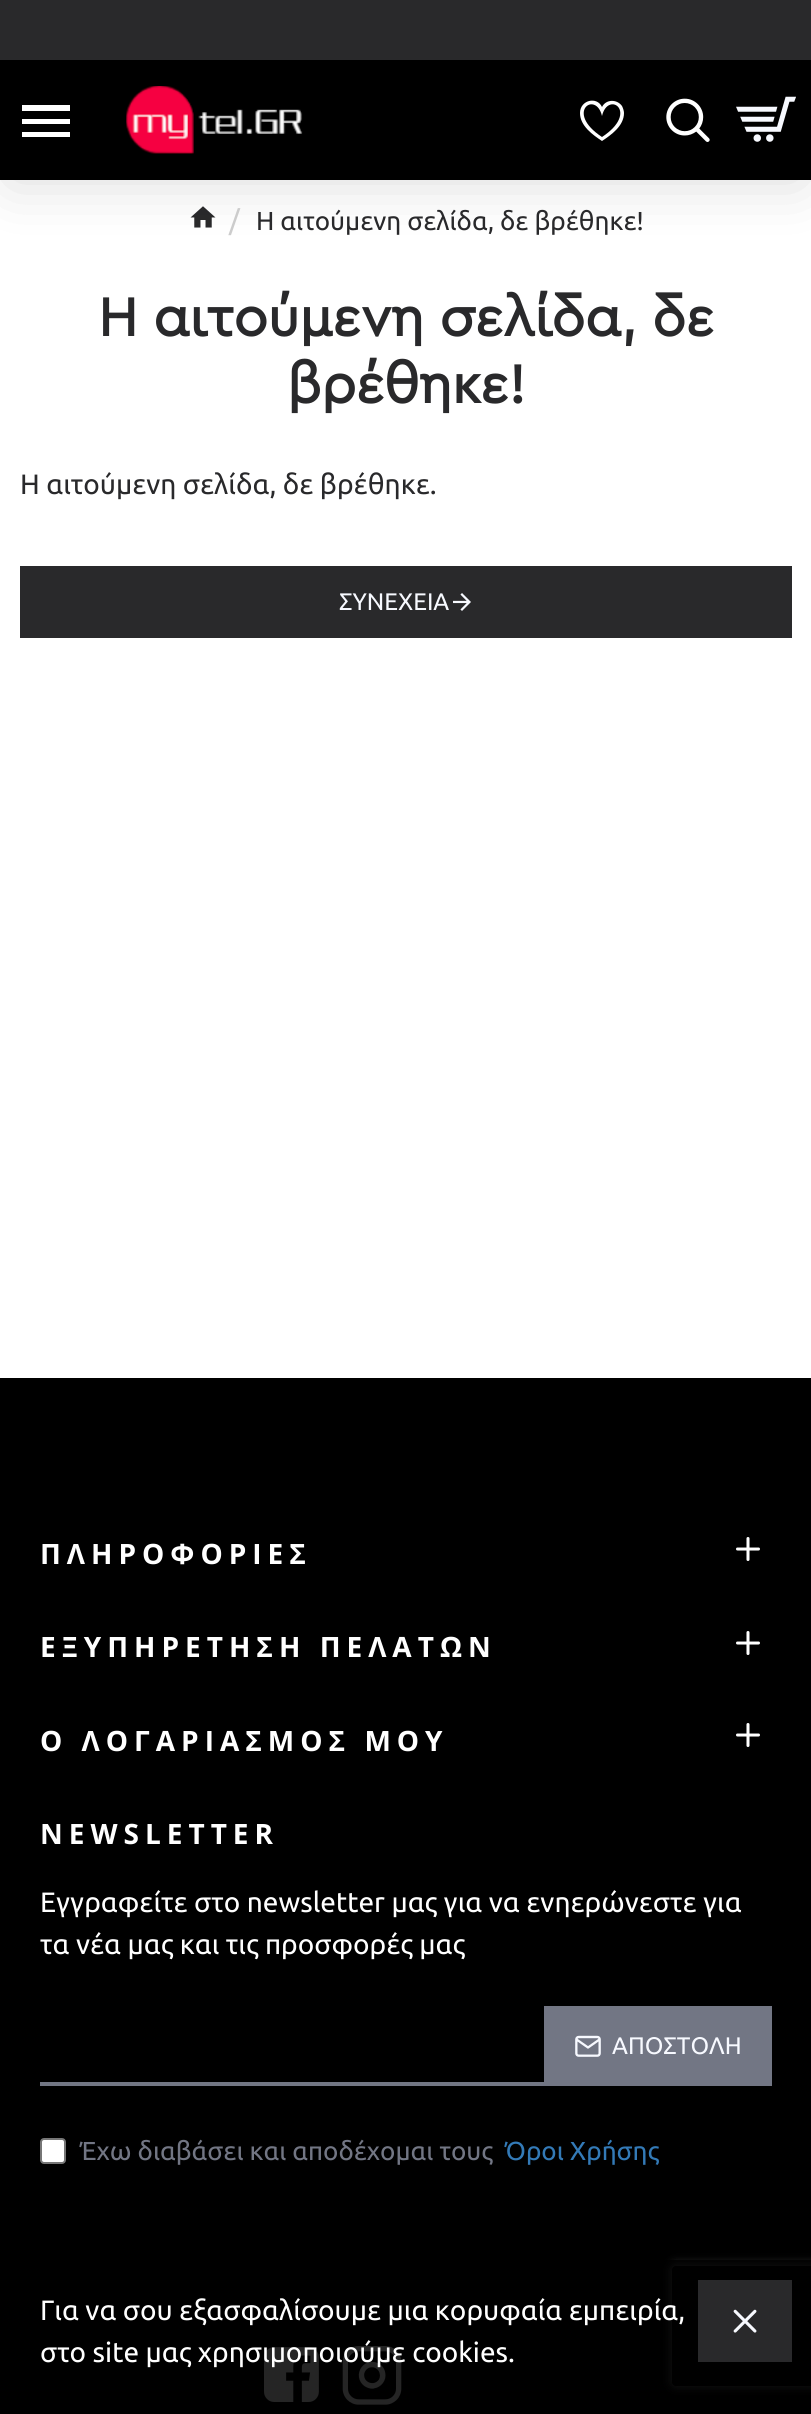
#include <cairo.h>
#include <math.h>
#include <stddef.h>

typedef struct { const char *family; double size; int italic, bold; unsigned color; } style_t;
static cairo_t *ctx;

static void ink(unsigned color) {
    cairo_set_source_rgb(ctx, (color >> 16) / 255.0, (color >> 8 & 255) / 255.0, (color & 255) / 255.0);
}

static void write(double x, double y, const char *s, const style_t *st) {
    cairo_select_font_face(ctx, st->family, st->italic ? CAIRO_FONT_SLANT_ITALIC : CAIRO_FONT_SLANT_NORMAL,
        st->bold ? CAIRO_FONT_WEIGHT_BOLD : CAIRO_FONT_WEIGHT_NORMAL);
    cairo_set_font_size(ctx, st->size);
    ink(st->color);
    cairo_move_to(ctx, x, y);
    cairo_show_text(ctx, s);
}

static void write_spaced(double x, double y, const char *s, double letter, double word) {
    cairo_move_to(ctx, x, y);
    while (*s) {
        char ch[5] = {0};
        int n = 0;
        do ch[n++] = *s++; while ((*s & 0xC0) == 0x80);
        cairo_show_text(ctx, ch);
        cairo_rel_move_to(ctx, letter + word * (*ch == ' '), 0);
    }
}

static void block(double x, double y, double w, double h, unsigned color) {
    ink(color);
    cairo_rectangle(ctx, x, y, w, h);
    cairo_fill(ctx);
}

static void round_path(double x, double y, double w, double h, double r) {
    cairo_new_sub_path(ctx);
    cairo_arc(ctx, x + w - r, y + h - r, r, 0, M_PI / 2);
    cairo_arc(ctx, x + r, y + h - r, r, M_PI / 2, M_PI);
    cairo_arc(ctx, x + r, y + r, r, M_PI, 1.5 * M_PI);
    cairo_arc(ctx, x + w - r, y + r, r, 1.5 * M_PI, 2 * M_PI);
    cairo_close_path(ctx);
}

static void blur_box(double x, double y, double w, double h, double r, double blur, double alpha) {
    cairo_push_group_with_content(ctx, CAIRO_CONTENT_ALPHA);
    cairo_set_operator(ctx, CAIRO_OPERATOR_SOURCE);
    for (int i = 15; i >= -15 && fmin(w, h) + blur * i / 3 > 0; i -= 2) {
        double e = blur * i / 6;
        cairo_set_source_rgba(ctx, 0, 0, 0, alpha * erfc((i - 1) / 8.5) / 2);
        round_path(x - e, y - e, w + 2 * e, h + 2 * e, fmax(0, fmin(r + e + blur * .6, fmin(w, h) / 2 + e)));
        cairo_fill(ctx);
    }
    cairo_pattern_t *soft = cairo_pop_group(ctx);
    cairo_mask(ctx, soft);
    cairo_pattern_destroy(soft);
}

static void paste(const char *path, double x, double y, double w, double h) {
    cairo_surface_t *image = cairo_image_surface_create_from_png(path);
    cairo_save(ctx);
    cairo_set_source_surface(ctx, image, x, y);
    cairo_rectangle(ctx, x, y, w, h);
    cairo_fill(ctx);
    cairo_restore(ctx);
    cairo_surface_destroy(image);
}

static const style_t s1 = {"Ubuntu", 28, 0, 0, 0xcccccc};
static const style_t s2 = {"Ubuntu", 26, 0, 0, 0x29292b};
static const style_t s3 = {"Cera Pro", 56, 0, 1, 0x29292b};
static const style_t s4 = {"Ubuntu", 28, 0, 0, 0x29292b};
static const style_t s5 = {"Ubuntu", 24, 0, 0, 0xf7f9ff};
static const style_t s6 = {"Ubuntu", 28, 0, 0, 0xffffff};
static const style_t s7 = {"Ubuntu", 26, 0, 0, 0x727684};
static const style_t s8 = {"Ubuntu", 26, 0, 0, 0x337ab7};

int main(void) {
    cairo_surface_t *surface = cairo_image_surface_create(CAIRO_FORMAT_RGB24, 811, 2414);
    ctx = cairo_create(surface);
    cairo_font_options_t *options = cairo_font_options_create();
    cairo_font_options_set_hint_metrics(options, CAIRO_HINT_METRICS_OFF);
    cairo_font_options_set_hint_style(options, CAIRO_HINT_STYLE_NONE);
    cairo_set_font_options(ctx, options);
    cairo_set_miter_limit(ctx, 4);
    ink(0xffffff);
    cairo_paint(ctx);
    paste("pic4.png", 190, 206, 26, 22);
    ink(0x000000);
    blur_box(10, 80, 792, 100, 0, 30, 0.15);
    block(0, 60, 811, 120, 0x000000);
    paste("pic1.png", 126, 86, 177, 68);
    ink(0xffffff);
    cairo_new_path(ctx);
    cairo_move_to(ctx, 22, 105);
    cairo_line_to(ctx, 70, 105);
    cairo_line_to(ctx, 70, 111);
    cairo_line_to(ctx, 22, 111);
    cairo_close_path(ctx);
    cairo_move_to(ctx, 22, 124);
    cairo_line_to(ctx, 22, 119);
    cairo_line_to(ctx, 70, 119);
    cairo_line_to(ctx, 70, 124);
    cairo_close_path(ctx);
    cairo_move_to(ctx, 22, 137);
    cairo_line_to(ctx, 22, 132);
    cairo_line_to(ctx, 70, 132);
    cairo_line_to(ctx, 70, 137);
    cairo_close_path(ctx);
    cairo_fill(ctx);
    cairo_new_path(ctx);
    cairo_move_to(ctx, 602, 116);
    cairo_curve_to(ctx, 608, 90, 640, 112, 602, 137);
    cairo_curve_to(ctx, 564, 112, 596, 90, 602, 116);
    cairo_close_path(ctx);
    cairo_move_to(ctx, 580, 113);
    cairo_curve_to(ctx, 580, 126, 593, 135, 602, 141);
    cairo_curve_to(ctx, 611, 135, 624, 126, 624, 113);
    cairo_curve_to(ctx, 624, 111, 623, 108, 622, 106);
    cairo_curve_to(ctx, 617, 99, 606, 99, 602, 107);
    cairo_curve_to(ctx, 597, 96, 580, 100, 580, 113);
    cairo_close_path(ctx);
    cairo_fill(ctx);
    paste("pic2.png", 666, 98, 44, 44);
    paste("pic3.png", 736, 96, 60, 46);
    block(0, 0, 811, 60, 0x29292b);
    write(229, 230, "/", &s1);
    write(256, 230, "Η αιτούμενη σελίδα, δε βρέθηκε!", &s2);
    write(98, 336, "Η αιτούμενη σελίδα, δε", &s3);
    write(287, 403, "βρέθηκε!", &s3);
    write(20, 494, "Η αιτούμενη σελίδα, δε βρέθηκε.", &s4);
    block(20, 566, 772, 72, 0x29292b);
    write(339, 610, "ΣΥΝΕΧΕΙΑ", &s5);
    paste("pic5.png", 453, 593, 18, 18);
    block(0, 1378, 811, 1036, 0x000000);
    cairo_select_font_face(ctx, "Open Sans", CAIRO_FONT_SLANT_NORMAL, CAIRO_FONT_WEIGHT_BOLD);
    cairo_set_font_size(ctx, 28);
    ink(0xffffff);
    write_spaced(40, 1564, "ΠΛΗΡΟΦΟΡΙΕΣ", 6, 0);
    paste("pic6.png", 736, 1537, 24, 24);
    write_spaced(40, 1657, "ΕΞΥΠΗΡΕΤΗΣΗ ΠΕΛΑΤΩΝ", 6, 0);
    paste("pic6.png", 736, 1631, 24, 24);
    write_spaced(40, 1751, "Ο ΛΟΓΑΡΙΑΣΜΟΣ ΜΟΥ", 6, 0);
    paste("pic6.png", 736, 1723, 24, 24);
    write_spaced(40, 1844, "NEWSLETTER", 6, 0);
    write(40, 1912, "Εγγραφείτε στο newsletter μας για να ενηερώνεστε για", &s6);
    write(40, 1954, "τα νέα μας και τις προσφορές μας", &s6);
    block(544, 2006, 228, 80, 0x727684);
    paste("pic7.png", 575, 2035, 26, 22);
    write(612, 2054, "ΑΠΟΣΤΟΛΗ", &s5);
    block(40, 2082, 504, 4, 0x727684);
    ink(0xffffff);
    round_path(41, 2139, 24, 24, 3);
    cairo_fill_preserve(ctx);
    ink(0x767676);
    cairo_stroke(ctx);
    write(80, 2160, "Έχω διαβάσει και αποδέχομαι τους", &s7);
    write(505, 2160, "Όροι Χρήσης", &s8);
    cairo_save(ctx);
    cairo_set_fill_rule(ctx, CAIRO_FILL_RULE_EVEN_ODD);
    cairo_new_path(ctx);
    cairo_move_to(ctx, 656, 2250);
    cairo_line_to(ctx, 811, 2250);
    cairo_line_to(ctx, 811, 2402);
    cairo_line_to(ctx, 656, 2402);
    cairo_close_path(ctx);
    cairo_move_to(ctx, 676, 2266);
    cairo_line_to(ctx, 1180, 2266);
    cairo_curve_to(ctx, 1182, 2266, 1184, 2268, 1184, 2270);
    cairo_line_to(ctx, 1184, 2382);
    cairo_curve_to(ctx, 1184, 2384, 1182, 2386, 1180, 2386);
    cairo_line_to(ctx, 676, 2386);
    cairo_curve_to(ctx, 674, 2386, 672, 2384, 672, 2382);
    cairo_line_to(ctx, 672, 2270);
    cairo_curve_to(ctx, 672, 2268, 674, 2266, 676, 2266);
    cairo_close_path(ctx);
    cairo_clip(ctx);
    ink(0x808080);
    blur_box(672, 2266, 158, 120, 4, 5, 1);
    cairo_restore(ctx);
    paste("pic8.png", 264, 2347, 55, 55);
    paste("pic9.png", 342, 2346, 60, 59);
    cairo_set_source_rgba(ctx, 0, 0, 0, 0.85);
    cairo_rectangle(ctx, 264, 2260, 547, 145);
    cairo_fill(ctx);
    write(40, 2320, "Για να σου εξασφαλίσουμε μια κορυφαία εμπειρία,", &s6);
    write(40, 2362, "στο site μας χρησιμοποιούμε cookies.", &s6);
    block(698, 2280, 94, 82, 0x29292b);
    paste("pic10.png", 733, 2309, 24, 24);
    cairo_surface_write_to_png(surface, "screenshot.png");
    cairo_font_options_destroy(options);
    cairo_destroy(ctx);
    cairo_surface_destroy(surface);
    return 0;
}
